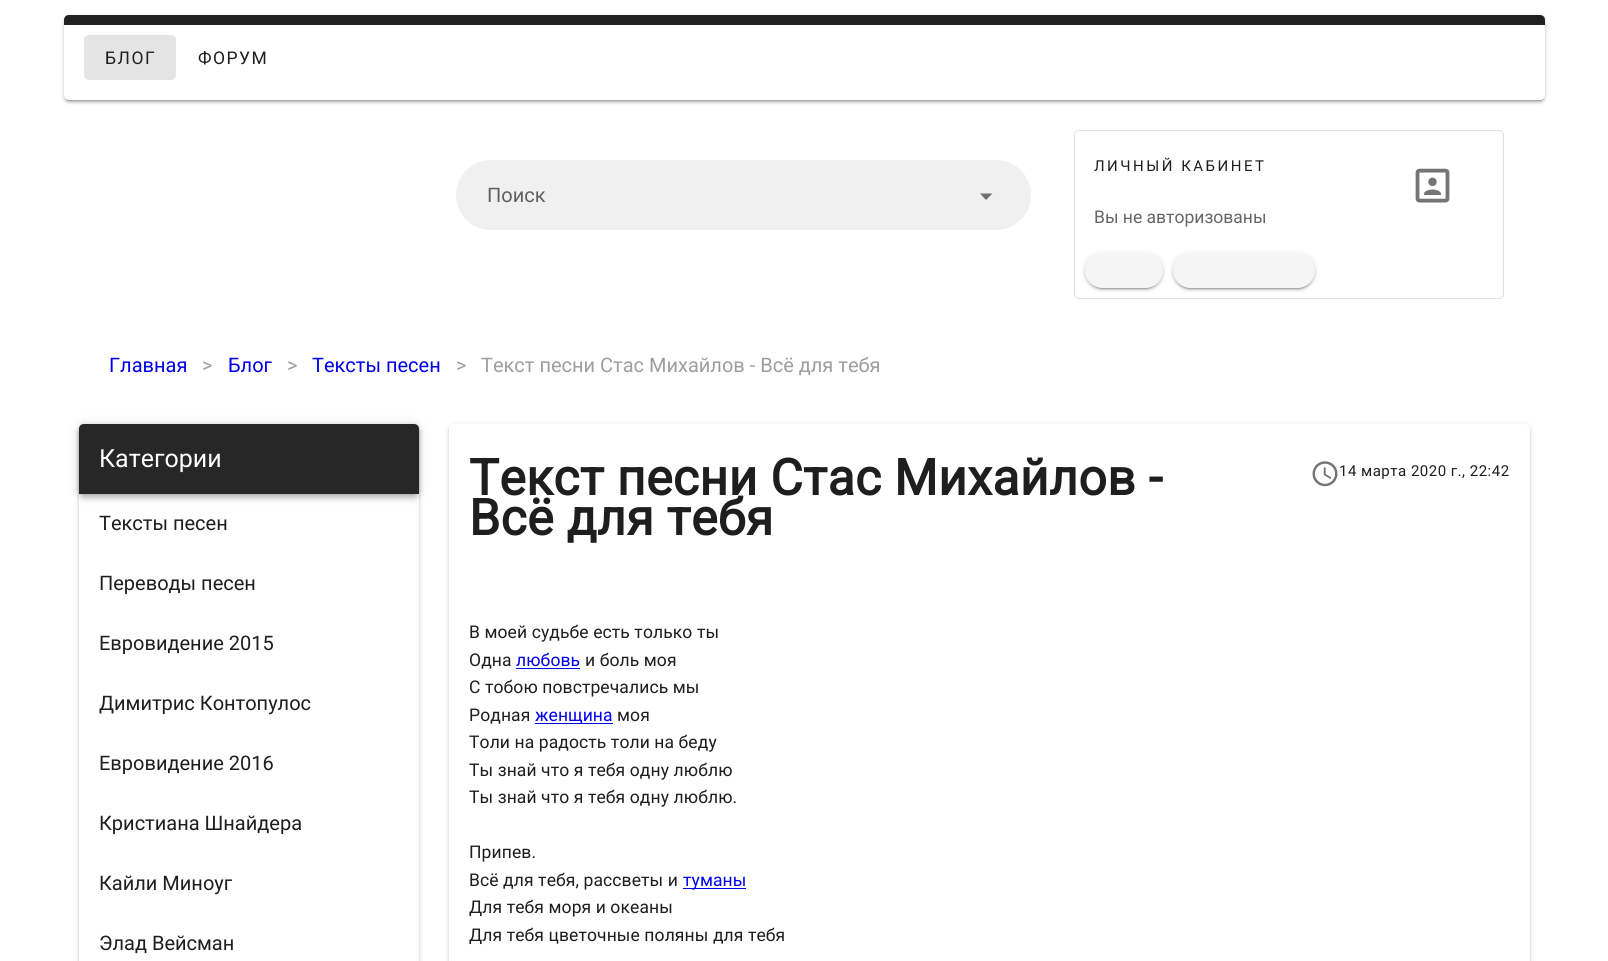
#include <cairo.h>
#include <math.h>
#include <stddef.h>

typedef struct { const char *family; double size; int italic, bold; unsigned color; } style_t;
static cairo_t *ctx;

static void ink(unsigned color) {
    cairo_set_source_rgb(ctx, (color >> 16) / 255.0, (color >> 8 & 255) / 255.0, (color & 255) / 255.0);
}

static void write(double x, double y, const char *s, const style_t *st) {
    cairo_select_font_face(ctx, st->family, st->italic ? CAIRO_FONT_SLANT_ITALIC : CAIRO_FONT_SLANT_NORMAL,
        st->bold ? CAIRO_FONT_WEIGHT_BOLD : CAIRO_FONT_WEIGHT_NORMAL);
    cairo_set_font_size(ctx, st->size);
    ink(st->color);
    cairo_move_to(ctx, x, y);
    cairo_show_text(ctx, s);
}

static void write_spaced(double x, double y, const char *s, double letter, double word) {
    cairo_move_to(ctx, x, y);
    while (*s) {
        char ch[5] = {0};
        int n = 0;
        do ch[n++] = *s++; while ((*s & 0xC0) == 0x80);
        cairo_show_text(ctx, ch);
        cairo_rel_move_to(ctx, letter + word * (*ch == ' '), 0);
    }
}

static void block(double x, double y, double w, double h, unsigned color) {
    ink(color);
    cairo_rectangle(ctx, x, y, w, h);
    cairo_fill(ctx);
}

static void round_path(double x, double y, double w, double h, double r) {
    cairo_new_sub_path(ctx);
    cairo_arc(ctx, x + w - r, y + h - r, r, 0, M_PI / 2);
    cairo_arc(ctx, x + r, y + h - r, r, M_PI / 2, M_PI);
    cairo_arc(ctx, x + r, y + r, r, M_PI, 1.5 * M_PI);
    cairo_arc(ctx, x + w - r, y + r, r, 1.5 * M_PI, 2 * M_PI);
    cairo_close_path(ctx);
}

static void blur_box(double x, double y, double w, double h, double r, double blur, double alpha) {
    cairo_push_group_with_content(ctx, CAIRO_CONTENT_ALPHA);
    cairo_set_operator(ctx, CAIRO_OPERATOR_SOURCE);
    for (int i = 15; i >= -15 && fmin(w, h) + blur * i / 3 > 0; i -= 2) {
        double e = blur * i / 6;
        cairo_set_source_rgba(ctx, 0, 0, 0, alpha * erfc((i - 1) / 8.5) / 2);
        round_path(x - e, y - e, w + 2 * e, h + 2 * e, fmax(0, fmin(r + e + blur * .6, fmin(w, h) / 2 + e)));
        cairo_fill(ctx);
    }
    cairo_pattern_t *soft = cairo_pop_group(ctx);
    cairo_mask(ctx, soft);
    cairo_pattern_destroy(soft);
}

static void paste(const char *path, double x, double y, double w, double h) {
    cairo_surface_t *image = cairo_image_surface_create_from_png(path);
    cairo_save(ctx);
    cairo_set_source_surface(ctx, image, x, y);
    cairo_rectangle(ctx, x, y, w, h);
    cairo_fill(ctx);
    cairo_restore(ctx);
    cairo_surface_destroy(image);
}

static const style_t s1 = {"Roboto", 20, 0, 0, 0x606060};
static const style_t s2 = {"Roboto", 17.5, 0, 0, 0x666666};
static const style_t s3 = {"Roboto", 20, 0, 0, 0x0000ee};
static const style_t s4 = {"Roboto", 20, 0, 0, 0x9e9e9e};
static const style_t s5 = {"Roboto", 25, 0, 0, 0xffffff};
static const style_t s6 = {"Roboto", 20, 0, 0, 0x1e1e1e};

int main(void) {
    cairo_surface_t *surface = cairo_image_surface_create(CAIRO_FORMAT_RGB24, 1608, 961);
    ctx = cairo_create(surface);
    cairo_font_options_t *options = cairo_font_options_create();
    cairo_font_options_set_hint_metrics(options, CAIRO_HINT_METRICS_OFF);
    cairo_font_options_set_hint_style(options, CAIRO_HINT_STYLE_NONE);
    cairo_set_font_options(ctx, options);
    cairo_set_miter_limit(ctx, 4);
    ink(0xffffff);
    cairo_paint(ctx);
    ink(0x000000);
    blur_box(64, 16, 1481, 85, 5, 3, 0.12);
    blur_box(64, 18, 1481, 85, 5, 1, 0.14);
    blur_box(66, 21, 1477, 80, 2.5, 0.5, 0.2);
    ink(0xffffff);
    round_path(64, 15, 1481, 85, 5);
    cairo_fill(ctx);
    ink(0x212121);
    cairo_new_path(ctx);
    cairo_move_to(ctx, 69, 15);
    cairo_line_to(ctx, 1540, 15);
    cairo_curve_to(ctx, 1543, 15, 1545, 17, 1545, 20);
    cairo_line_to(ctx, 1545, 25);
    cairo_line_to(ctx, 64, 25);
    cairo_line_to(ctx, 64, 20);
    cairo_curve_to(ctx, 64, 17, 66, 15, 69, 15);
    cairo_close_path(ctx);
    cairo_fill(ctx);
    ink(0xe4e4e4);
    round_path(84, 35, 92, 45, 5);
    cairo_fill(ctx);
    cairo_select_font_face(ctx, "Roboto", CAIRO_FONT_SLANT_NORMAL, CAIRO_FONT_WEIGHT_NORMAL);
    cairo_set_font_size(ctx, 17.5);
    ink(0x1e1e1e);
    write_spaced(105, 64, "БЛОГ", 1.5, 0);
    write_spaced(198, 64, "ФОРУМ", 1.5, 0);
    ink(0xf0f0f0);
    round_path(456, 160, 575, 70, 35);
    cairo_fill(ctx);
    write(487, 202, "Поиск", &s1);
    ink(0x6e6e6e);
    cairo_new_path(ctx);
    cairo_move_to(ctx, 980, 193.5);
    cairo_line_to(ctx, 986, 200);
    cairo_line_to(ctx, 992.5, 193.5);
    cairo_close_path(ctx);
    cairo_fill(ctx);
    round_path(1074.5, 130.5, 429, 168, 4.5);
    ink(0xe0e0e0);
    cairo_set_line_width(ctx, 1);
    cairo_stroke(ctx);
    cairo_set_font_size(ctx, 15);
    ink(0x1e1e1e);
    write_spaced(1094, 171, "ЛИЧНЫЙ КАБИНЕТ", 2.5, 0);
    write(1094, 223, "Вы не авторизованы", &s2);
    paste("pic1.png", 1415, 168, 35, 35);
    ink(0x000000);
    blur_box(1085, 254, 78, 35, 17.5, 3, 0.12);
    blur_box(1085, 255, 78, 35, 17.5, 1, 0.14);
    blur_box(1088, 259, 72, 30, 15, 0.5, 0.2);
    ink(0xf5f5f5);
    round_path(1085, 253, 78, 35, 17.5);
    cairo_fill(ctx);
    ink(0x000000);
    blur_box(1173, 254, 142, 35, 17.5, 3, 0.12);
    blur_box(1173, 255, 142, 35, 17.5, 1, 0.14);
    blur_box(1175, 259, 138, 30, 15, 0.5, 0.2);
    ink(0xf5f5f5);
    round_path(1173, 253, 142, 35, 17.5);
    cairo_fill(ctx);
    write(109, 372, "Главная", &s3);
    write(202, 372, ">", &s4);
    write(228, 372, "Блог", &s3);
    write(287, 372, ">", &s4);
    write(312, 372, "Тексты песен", &s3);
    write(456, 372, ">", &s4);
    write(481, 372, "Текст песни Стас Михайлов - Всё для тебя", &s4);
    ink(0x000000);
    blur_box(79, 425, 340, 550, 5, 3, 0.12);
    blur_box(79, 426, 340, 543, 5, 1, 0.14);
    ink(0xffffff);
    round_path(79, 424, 340, 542, 5);
    cairo_fill(ctx);
    ink(0x000000);
    blur_box(79, 425, 340, 70, 5, 6, 0.12);
    blur_box(79, 429, 340, 70, 5, 3, 0.14);
    blur_box(80, 428, 338, 67, 4, 2.5, 0.2);
    ink(0x272727);
    cairo_new_path(ctx);
    cairo_move_to(ctx, 84, 424);
    cairo_line_to(ctx, 414, 424);
    cairo_curve_to(ctx, 417, 424, 419, 426, 419, 429);
    cairo_line_to(ctx, 419, 494);
    cairo_line_to(ctx, 79, 494);
    cairo_line_to(ctx, 79, 429);
    cairo_curve_to(ctx, 79, 426, 81, 424, 84, 424);
    cairo_close_path(ctx);
    cairo_fill(ctx);
    write(99, 467, "Категории", &s5);
    write(99, 530, "Тексты песен", &s6);
    write(99, 590, "Переводы песен", &s6);
    write(99, 650, "Евровидение 2015", &s6);
    write(99, 710, "Димитрис Контопулос", &s6);
    write(99, 770, "Евровидение 2016", &s6);
    write(99, 830, "Кристиана Шнайдера", &s6);
    write(99, 890, "Кайли Миноуг", &s6);
    write(99, 950, "Элад Вейсман", &s6);
    ink(0x000000);
    blur_box(449, 425, 1081, 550, 5, 3, 0.12);
    blur_box(449, 426, 1081, 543, 5, 1, 0.14);
    ink(0xffffff);
    round_path(449, 424, 1081, 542, 5);
    cairo_fill(ctx);
    cairo_select_font_face(ctx, "Roboto", CAIRO_FONT_SLANT_NORMAL, CAIRO_FONT_WEIGHT_BOLD);
    cairo_set_font_size(ctx, 50);
    ink(0x1e1e1e);
    write_spaced(469, 495, "Текст песни Стас Михайлов -", 0.3, 0);
    write_spaced(469, 535, "Всё для тебя", 0.3, 0);
    paste("pic2.png", 1312, 461, 26, 26);
    cairo_select_font_face(ctx, "Roboto", CAIRO_FONT_SLANT_NORMAL, CAIRO_FONT_WEIGHT_NORMAL);
    cairo_set_font_size(ctx, 15);
    write_spaced(1339, 476, "14 марта 2020 г., 22:42", 0.5, 0);
    cairo_set_font_size(ctx, 17.5);
    write_spaced(469, 638, "В моей судьбе есть только ты", 0.1, 0);
    write_spaced(469, 666, "Одна", 0.1, 0);
    ink(0x0000ee);
    write_spaced(516, 666, "любовь", 0.1, 0);
    block(516, 668, 64, 1, 0x0000ee);
    ink(0x1e1e1e);
    write_spaced(585, 666, "и боль моя", 0.1, 0);
    write_spaced(469, 693, "С тобою повстречались мы", 0.1, 0);
    write_spaced(469, 721, "Родная", 0.1, 0);
    block(535, 723, 78, 1, 0x0000ee);
    write_spaced(535, 721, "женщина", 0.1, 0);
    ink(0x1e1e1e);
    write_spaced(617, 721, "моя", 0.1, 0);
    write_spaced(469, 748, "Толи на радость толи на беду", 0.1, 0);
    write_spaced(469, 776, "Ты знай что я тебя одну люблю", 0.1, 0);
    write_spaced(469, 803, "Ты знай что я тебя одну люблю.", 0.1, 0);
    write_spaced(469, 858, "Припев.", 0.1, 0);
    write_spaced(469, 886, "Всё для тебя, рассветы и", 0.1, 0);
    block(683, 888, 63, 1, 0x0000ee);
    write_spaced(683, 886, "туманы", 0.1, 0);
    ink(0x1e1e1e);
    write_spaced(469, 913, "Для тебя моря и океаны", 0.1, 0);
    write_spaced(469, 941, "Для тебя цветочные поляны для тебя", 0.1, 0);
    cairo_surface_write_to_png(surface, "screenshot.png");
    cairo_font_options_destroy(options);
    cairo_destroy(ctx);
    cairo_surface_destroy(surface);
    return 0;
}
